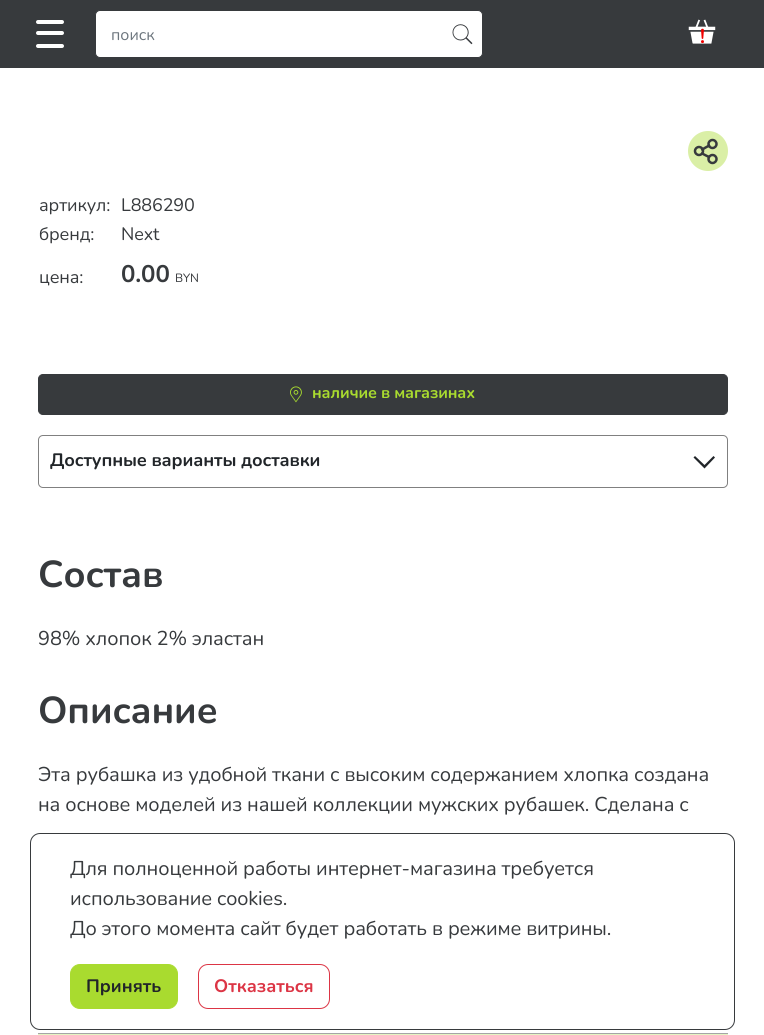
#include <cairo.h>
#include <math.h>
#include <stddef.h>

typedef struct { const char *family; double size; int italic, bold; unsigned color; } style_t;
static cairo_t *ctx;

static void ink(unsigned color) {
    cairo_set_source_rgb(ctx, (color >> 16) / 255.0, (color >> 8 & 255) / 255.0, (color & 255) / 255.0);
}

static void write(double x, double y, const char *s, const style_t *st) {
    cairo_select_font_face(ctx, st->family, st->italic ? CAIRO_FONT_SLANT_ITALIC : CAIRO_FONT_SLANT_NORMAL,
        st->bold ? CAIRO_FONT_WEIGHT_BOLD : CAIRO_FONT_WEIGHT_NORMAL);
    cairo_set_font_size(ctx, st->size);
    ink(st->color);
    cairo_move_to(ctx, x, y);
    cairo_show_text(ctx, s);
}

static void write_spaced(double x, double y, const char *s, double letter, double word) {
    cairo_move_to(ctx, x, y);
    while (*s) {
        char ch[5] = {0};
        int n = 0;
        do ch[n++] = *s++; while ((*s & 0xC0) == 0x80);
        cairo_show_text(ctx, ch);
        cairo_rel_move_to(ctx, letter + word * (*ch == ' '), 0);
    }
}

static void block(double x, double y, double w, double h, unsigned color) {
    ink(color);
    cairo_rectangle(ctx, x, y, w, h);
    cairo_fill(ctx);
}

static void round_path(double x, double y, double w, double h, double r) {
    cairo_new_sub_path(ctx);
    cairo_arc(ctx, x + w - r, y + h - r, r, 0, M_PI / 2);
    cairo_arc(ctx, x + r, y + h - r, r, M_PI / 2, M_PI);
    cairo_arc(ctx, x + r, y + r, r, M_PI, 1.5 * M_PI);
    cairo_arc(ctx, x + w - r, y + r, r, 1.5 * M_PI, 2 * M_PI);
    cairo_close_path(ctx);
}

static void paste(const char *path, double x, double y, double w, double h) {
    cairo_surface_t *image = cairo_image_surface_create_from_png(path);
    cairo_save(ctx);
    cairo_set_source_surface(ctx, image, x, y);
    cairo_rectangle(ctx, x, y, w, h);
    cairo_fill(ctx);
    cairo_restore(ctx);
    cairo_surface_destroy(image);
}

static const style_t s1 = {"Nunito", 16, 0, 0, 0x6c757d};
static const style_t s2 = {"Nunito", 18, 0, 1, 0x212529};
static const style_t s3 = {"Nunito", 18, 0, 1, 0xdc3545};

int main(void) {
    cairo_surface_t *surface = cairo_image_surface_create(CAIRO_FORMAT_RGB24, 764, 1035);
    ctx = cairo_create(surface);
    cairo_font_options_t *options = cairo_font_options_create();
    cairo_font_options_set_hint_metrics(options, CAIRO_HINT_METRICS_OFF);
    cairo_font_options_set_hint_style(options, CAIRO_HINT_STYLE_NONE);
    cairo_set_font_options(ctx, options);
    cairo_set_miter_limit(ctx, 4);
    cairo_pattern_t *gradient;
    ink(0xffffff);
    cairo_paint(ctx);
    block(0, 0, 764, 68, 0x373a3d);
    ink(0xffffff);
    round_path(36, 20, 28, 4, 2);
    cairo_fill(ctx);
    round_path(36, 31, 28, 4, 2);
    cairo_fill(ctx);
    round_path(36, 44, 28, 4, 2);
    cairo_fill(ctx);
    round_path(95.5, 10.5, 387, 47, 4.5);
    cairo_fill_preserve(ctx);
    ink(0x373a3d);
    cairo_set_line_width(ctx, 1);
    cairo_stroke(ctx);
    write(111, 40, "поиск", &s1);
    paste("pic1.png", 452, 24, 21, 21);
    paste("pic2.png", 688, 19, 28, 25);
    cairo_select_font_face(ctx, "Nunito", CAIRO_FONT_SLANT_NORMAL, CAIRO_FONT_WEIGHT_BOLD);
    cairo_set_font_size(ctx, 20);
    ink(0xf00000);
    write_spaced(700, 43, "!", -0.12, 0);
    ink(0xdaefa6);
    cairo_new_path(ctx);
    cairo_arc(ctx, 708, 151, 20, 0, 2 * M_PI);
    cairo_fill(ctx);
    paste("pic3.png", 693, 138, 25, 27);
    cairo_select_font_face(ctx, "Nunito", CAIRO_FONT_SLANT_NORMAL, CAIRO_FONT_WEIGHT_NORMAL);
    cairo_set_font_size(ctx, 18);
    ink(0x373a3d);
    write_spaced(39, 211, "артикул:", -0.12, 0);
    write_spaced(121, 211, "L886290", -0.12, 0);
    write_spaced(39, 240, "бренд:", -0.12, 0);
    write_spaced(121, 240, "Next", -0.12, 0);
    write_spaced(39, 283, "цена:", -0.12, 0);
    cairo_select_font_face(ctx, "Nunito", CAIRO_FONT_SLANT_NORMAL, CAIRO_FONT_WEIGHT_BOLD);
    cairo_set_font_size(ctx, 24);
    write_spaced(121, 282, "0.00", -0.12, 0);
    cairo_select_font_face(ctx, "Nunito", CAIRO_FONT_SLANT_NORMAL, CAIRO_FONT_WEIGHT_NORMAL);
    cairo_set_font_size(ctx, 12);
    write_spaced(175, 282, "BYN", -0.12, 0);
    round_path(38.5, 374.5, 689, 40, 4.5);
    cairo_fill_preserve(ctx);
    cairo_stroke(ctx);
    paste("pic4.png", 290, 386, 12, 17);
    cairo_select_font_face(ctx, "Nunito", CAIRO_FONT_SLANT_NORMAL, CAIRO_FONT_WEIGHT_BOLD);
    cairo_set_font_size(ctx, 16);
    ink(0xa9db2f);
    write_spaced(312, 398, "наличие в магазинах", -0.12, 0);
    round_path(38.5, 435.5, 689, 52, 4.5);
    ink(0x808080);
    cairo_stroke(ctx);
    cairo_set_font_size(ctx, 18);
    ink(0x212529);
    write_spaced(50, 466, "Доступные варианты доставки", -0.12, 0);
    cairo_new_path(ctx);
    cairo_move_to(ctx, 693.5, 457.5);
    cairo_line_to(ctx, 704.5, 468.5);
    cairo_line_to(ctx, 715, 457.5);
    cairo_line_to(ctx, 713.5, 456);
    cairo_line_to(ctx, 704.5, 465);
    cairo_line_to(ctx, 695, 456);
    cairo_close_path(ctx);
    cairo_fill(ctx);
    cairo_set_font_size(ctx, 37.5);
    ink(0x373a3d);
    write_spaced(38, 587, "Состав", -0.12, 0);
    cairo_select_font_face(ctx, "Nunito", CAIRO_FONT_SLANT_NORMAL, CAIRO_FONT_WEIGHT_NORMAL);
    cairo_set_font_size(ctx, 20);
    write_spaced(38, 645, "98% хлопок 2% эластан", -0.12, 0);
    cairo_select_font_face(ctx, "Nunito", CAIRO_FONT_SLANT_NORMAL, CAIRO_FONT_WEIGHT_BOLD);
    cairo_set_font_size(ctx, 37.5);
    write_spaced(38, 723, "Описание", -0.12, 0);
    cairo_select_font_face(ctx, "Nunito", CAIRO_FONT_SLANT_NORMAL, CAIRO_FONT_WEIGHT_NORMAL);
    cairo_set_font_size(ctx, 20);
    write_spaced(38, 781, "Эта рубашка из удобной ткани с высоким содержанием хлопка создана", -0.12, 0);
    write_spaced(38, 811, "на основе моделей из нашей коллекции мужских рубашек. Сделана с", -0.12, 0);
    block(38, 1033, 690, 1, 0x808080);
    block(38, 1034, 690, 1, 0xdaefa6);
    gradient = cairo_pattern_create_linear(383, 1015, 383, 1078);
    cairo_pattern_add_color_stop_rgba(gradient, 0, 1, 1, 1, 0);
    cairo_pattern_add_color_stop_rgba(gradient, 1, 1, 1, 1, 1);
    cairo_set_source(ctx, gradient);
    cairo_pattern_destroy(gradient);
    cairo_rectangle(ctx, 38, 1033, 690, 2);
    cairo_fill(ctx);
    round_path(30.5, 833.5, 704, 196, 9.5);
    ink(0x373a3d);
    cairo_stroke(ctx);
    write_spaced(70, 875, "Для полноценной работы интернет-магазина требуется", -0.12, 0);
    write_spaced(70, 905, "использование cookies.", -0.12, 0);
    write_spaced(70, 935, "До этого момента сайт будет работать в режиме витрины.", -0.12, 0);
    ink(0xa9db2f);
    round_path(70.5, 964.5, 107, 44, 9.5);
    cairo_fill_preserve(ctx);
    cairo_stroke(ctx);
    write(86, 992, "Принять", &s2);
    round_path(198.5, 964.5, 131, 44, 9.5);
    ink(0xdc3545);
    cairo_stroke(ctx);
    write(214, 992, "Отказаться", &s3);
    cairo_surface_write_to_png(surface, "screenshot.png");
    cairo_font_options_destroy(options);
    cairo_destroy(ctx);
    cairo_surface_destroy(surface);
    return 0;
}
